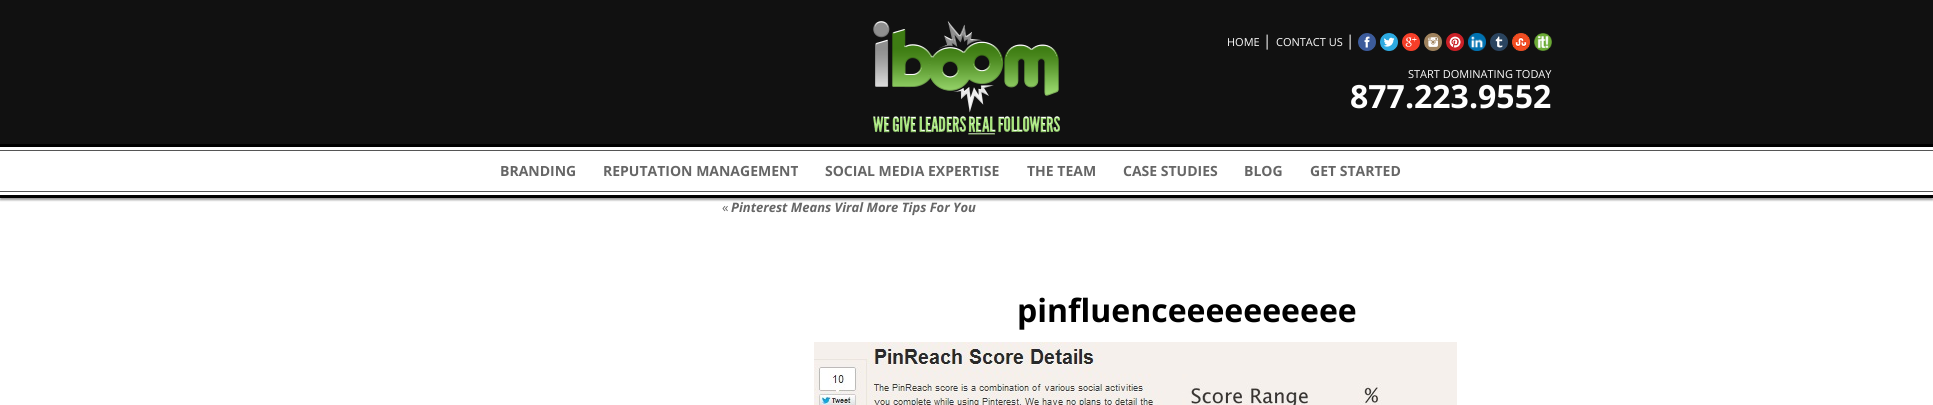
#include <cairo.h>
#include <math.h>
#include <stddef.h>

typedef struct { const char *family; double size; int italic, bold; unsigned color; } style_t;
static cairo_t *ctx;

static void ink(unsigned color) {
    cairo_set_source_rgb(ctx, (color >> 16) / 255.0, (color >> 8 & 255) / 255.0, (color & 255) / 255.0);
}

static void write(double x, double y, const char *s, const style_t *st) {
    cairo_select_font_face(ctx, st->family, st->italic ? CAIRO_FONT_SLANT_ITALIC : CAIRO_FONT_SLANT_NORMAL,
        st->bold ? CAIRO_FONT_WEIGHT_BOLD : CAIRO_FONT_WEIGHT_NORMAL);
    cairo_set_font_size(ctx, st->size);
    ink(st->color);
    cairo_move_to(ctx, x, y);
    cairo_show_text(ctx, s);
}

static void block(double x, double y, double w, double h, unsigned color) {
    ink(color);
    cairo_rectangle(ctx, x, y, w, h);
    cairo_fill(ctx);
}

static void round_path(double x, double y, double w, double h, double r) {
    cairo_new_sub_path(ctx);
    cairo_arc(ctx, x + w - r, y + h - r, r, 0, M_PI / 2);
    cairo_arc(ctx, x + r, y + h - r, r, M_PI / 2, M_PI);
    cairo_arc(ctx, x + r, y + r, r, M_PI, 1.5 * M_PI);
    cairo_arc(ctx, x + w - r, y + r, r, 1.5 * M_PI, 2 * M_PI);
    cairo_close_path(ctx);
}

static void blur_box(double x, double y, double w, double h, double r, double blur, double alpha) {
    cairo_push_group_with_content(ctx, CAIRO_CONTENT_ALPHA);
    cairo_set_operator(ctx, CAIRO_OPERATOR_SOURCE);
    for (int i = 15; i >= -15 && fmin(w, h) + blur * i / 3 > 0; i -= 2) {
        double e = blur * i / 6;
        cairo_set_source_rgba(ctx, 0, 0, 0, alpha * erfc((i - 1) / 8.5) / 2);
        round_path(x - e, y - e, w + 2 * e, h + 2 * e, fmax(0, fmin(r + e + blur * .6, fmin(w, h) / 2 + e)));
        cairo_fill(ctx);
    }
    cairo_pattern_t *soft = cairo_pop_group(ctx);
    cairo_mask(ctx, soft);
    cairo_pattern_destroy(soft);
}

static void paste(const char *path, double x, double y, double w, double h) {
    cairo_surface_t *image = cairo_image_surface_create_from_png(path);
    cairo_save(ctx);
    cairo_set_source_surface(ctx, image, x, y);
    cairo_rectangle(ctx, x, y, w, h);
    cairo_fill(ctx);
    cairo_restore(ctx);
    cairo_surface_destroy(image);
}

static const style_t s1 = {"Open Sans", 11, 0, 0, 0xffffff};
static const style_t s2 = {"Open Sans", 15, 0, 0, 0xffffff};
static const style_t s3 = {"Open Sans", 32, 0, 1, 0xffffff};
static const style_t s4 = {"Open Sans", 14, 0, 1, 0x666666};
static const style_t s5 = {"Open Sans", 13, 0, 0, 0x666666};
static const style_t s6 = {"Open Sans", 13, 1, 1, 0x666666};
static const style_t s7 = {"Open Sans", 32, 0, 1, 0x000000};

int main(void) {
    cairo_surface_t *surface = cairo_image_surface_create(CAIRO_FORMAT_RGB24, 1933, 405);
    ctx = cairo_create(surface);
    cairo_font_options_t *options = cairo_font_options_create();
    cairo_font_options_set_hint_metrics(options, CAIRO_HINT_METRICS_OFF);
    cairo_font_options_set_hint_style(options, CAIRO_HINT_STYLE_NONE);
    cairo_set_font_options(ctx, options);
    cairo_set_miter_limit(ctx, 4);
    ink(0xffffff);
    cairo_paint(ctx);
    block(0, 0, 1933, 144, 0x111111);
    paste("pic1.png", 873, 21, 187, 114);
    write(1227, 46, "HOME", &s1);
    write(1263, 46, "|", &s2);
    write(1276, 46, "CONTACT US", &s1);
    write(1346, 46, "|", &s2);
    paste("pic2.png", 1358, 33, 18, 18);
    paste("pic3.png", 1380, 33, 18, 18);
    paste("pic4.png", 1402, 33, 18, 18);
    paste("pic5.png", 1424, 33, 18, 18);
    paste("pic6.png", 1446, 33, 18, 18);
    paste("pic7.png", 1468, 33, 18, 18);
    paste("pic8.png", 1490, 33, 18, 18);
    paste("pic9.png", 1512, 33, 18, 18);
    paste("pic10.png", 1534, 33, 18, 18);
    write(1408, 78, "START DOMINATING TODAY", &s1);
    write(1350, 108, "877.223.9552", &s3);
    cairo_save(ctx);
    cairo_rectangle(ctx, 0, 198, 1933, 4);
    cairo_clip(ctx);
    ink(0x000000);
    blur_box(0, 146, 1933, 54, 0, 1, 0.4);
    cairo_restore(ctx);
    block(0, 144, 1933, 3, 0x000000);
    block(0, 195, 1933, 3, 0x000000);
    block(0, 150, 1933, 1, 0x555555);
    block(0, 191, 1933, 1, 0x555555);
    write(500, 176, "BRANDING", &s4);
    write(603, 176, "REPUTATION MANAGEMENT", &s4);
    write(825, 176, "SOCIAL MEDIA EXPERTISE", &s4);
    write(1027, 176, "THE TEAM", &s4);
    write(1123, 176, "CASE STUDIES", &s4);
    write(1244, 176, "BLOG", &s4);
    write(1310, 176, "GET STARTED", &s4);
    write(722, 212, "«", &s5);
    write(731, 212, "Pinterest Means Viral More Tips For You", &s6);
    write(1017, 322, "pinfluenceeeeeeeeee", &s7);
    paste("pic11.png", 814, 342, 643, 63);
    cairo_surface_write_to_png(surface, "screenshot.png");
    cairo_font_options_destroy(options);
    cairo_destroy(ctx);
    cairo_surface_destroy(surface);
    return 0;
}
